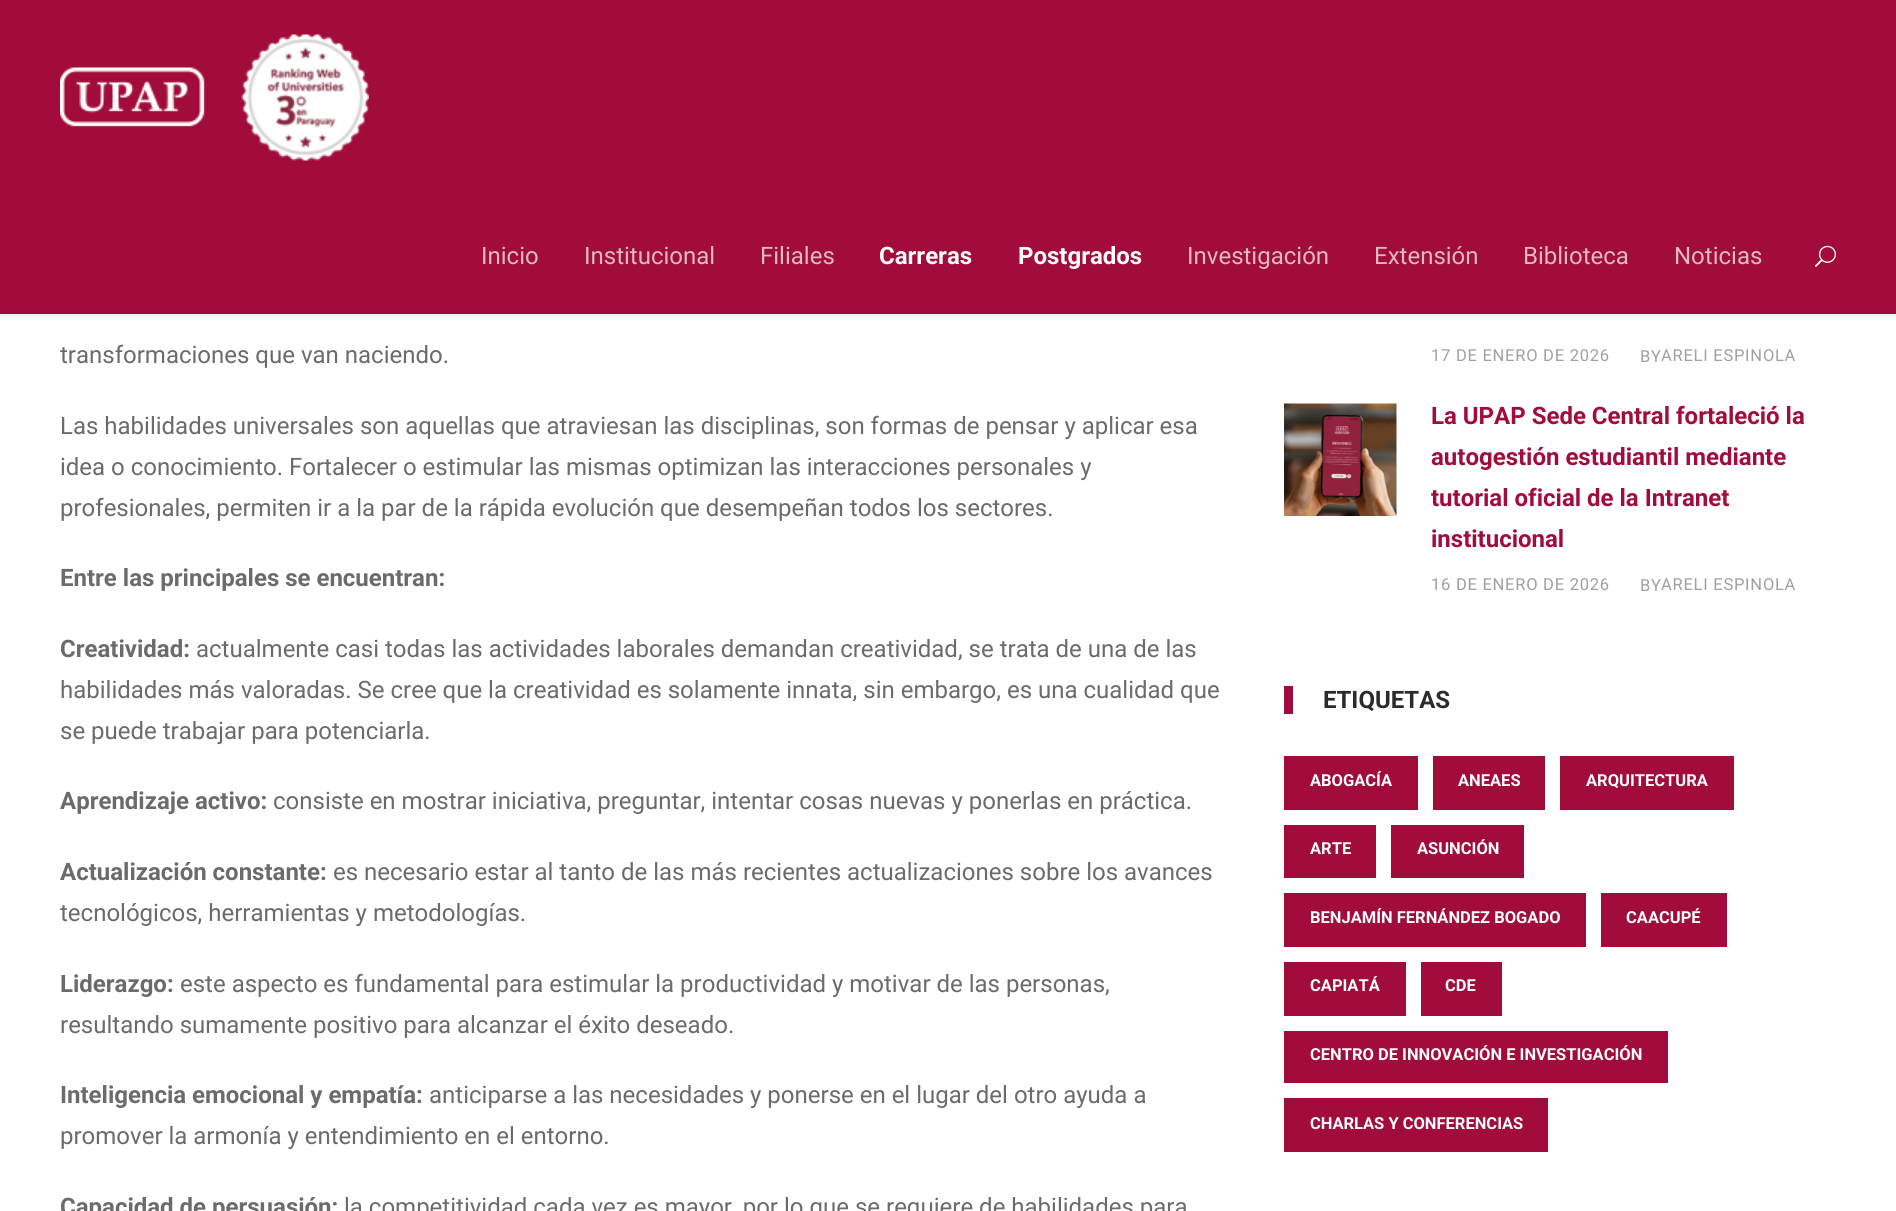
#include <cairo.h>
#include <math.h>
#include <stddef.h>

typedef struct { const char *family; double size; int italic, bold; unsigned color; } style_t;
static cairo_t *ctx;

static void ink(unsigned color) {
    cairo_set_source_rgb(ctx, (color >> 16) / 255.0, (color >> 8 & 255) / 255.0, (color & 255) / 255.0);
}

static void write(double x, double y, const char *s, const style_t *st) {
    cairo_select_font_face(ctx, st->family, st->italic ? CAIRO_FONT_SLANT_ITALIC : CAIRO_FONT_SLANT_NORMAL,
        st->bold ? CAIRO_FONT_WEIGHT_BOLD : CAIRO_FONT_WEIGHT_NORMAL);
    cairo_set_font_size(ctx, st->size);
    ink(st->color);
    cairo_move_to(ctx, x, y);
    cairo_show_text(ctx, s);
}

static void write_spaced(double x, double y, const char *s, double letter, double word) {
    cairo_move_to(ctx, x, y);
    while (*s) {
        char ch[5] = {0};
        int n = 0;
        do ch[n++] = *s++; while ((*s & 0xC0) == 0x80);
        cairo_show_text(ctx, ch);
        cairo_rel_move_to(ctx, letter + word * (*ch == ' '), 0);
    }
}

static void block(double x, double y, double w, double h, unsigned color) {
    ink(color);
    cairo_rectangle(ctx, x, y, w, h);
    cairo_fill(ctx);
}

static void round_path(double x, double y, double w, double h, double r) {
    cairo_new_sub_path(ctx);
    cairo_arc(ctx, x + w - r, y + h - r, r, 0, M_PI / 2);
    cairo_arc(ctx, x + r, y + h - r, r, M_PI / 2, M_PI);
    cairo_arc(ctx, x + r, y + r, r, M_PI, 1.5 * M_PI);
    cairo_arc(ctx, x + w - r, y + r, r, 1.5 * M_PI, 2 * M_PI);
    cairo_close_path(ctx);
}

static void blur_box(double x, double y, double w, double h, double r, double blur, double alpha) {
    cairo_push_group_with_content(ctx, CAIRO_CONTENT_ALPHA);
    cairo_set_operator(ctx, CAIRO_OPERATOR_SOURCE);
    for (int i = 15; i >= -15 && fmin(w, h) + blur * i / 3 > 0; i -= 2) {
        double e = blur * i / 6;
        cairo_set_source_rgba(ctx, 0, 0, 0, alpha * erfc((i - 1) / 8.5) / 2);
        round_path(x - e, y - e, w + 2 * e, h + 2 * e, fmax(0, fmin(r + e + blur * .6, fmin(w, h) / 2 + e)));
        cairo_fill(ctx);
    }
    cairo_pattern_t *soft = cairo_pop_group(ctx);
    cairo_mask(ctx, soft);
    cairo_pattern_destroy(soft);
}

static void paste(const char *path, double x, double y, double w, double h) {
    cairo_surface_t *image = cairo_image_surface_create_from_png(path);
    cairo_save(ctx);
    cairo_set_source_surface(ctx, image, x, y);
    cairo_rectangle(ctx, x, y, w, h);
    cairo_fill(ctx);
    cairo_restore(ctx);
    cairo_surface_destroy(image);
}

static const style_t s1 = {"Roboto", 24, 0, 0, 0xddb9c1};
static const style_t s2 = {"Roboto", 24, 0, 1, 0xffffff};
static const style_t s3 = {"Roboto", 24, 0, 0, 0x6b6b6b};
static const style_t s4 = {"Roboto", 24, 0, 1, 0x6b6b6b};
static const style_t s5 = {"Roboto", 24, 0, 1, 0xa20c3b};
static const style_t s6 = {"Roboto", 24, 0, 1, 0x2b2b2b};
static const style_t s7 = {"Roboto", 16.5, 0, 1, 0xffffff};

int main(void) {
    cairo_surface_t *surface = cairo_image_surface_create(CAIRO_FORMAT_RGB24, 1896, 1211);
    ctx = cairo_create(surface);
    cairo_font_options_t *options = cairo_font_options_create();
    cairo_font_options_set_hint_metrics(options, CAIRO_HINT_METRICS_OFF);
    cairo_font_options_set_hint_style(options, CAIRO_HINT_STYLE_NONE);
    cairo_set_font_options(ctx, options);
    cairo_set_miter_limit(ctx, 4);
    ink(0xffffff);
    cairo_paint(ctx);
    ink(0x000000);
    blur_box(0, 2, 1896, 313, 0, 3, 0.1);
    block(0, 0, 1896, 314, 0xa20c3b);
    paste("pic1.png", 60, 34, 309, 127);
    write(481, 264, "Inicio", &s1);
    write(584, 264, "Institucional", &s1);
    write(760, 264, "Filiales", &s1);
    write(879, 264, "Carreras", &s2);
    write(1018, 264, "Postgrados", &s2);
    write(1187, 264, "Investigación", &s1);
    write(1374, 264, "Extensión", &s1);
    write(1523, 264, "Biblioteca", &s1);
    write(1674, 264, "Noticias", &s1);
    paste("pic2.png", 1815, 245, 21, 22);
    write(60, 363, "transformaciones que van naciendo.", &s3);
    write(60, 434, "Las habilidades universales son aquellas que atraviesan las disciplinas, son formas de pensar y aplicar esa", &s3);
    write(60, 475, "idea o conocimiento. Fortalecer o estimular las mismas optimizan las interacciones personales y", &s3);
    write(60, 516, "profesionales, permiten ir a la par de la rápida evolución que desempeñan todos los sectores.", &s3);
    write(60, 586, "Entre las principales se encuentran:", &s4);
    write(60, 657, "Creatividad:", &s4);
    write(196, 657, "actualmente casi todas las actividades laborales demandan creatividad, se trata de una de las", &s3);
    write(60, 698, "habilidades más valoradas. Se cree que la creatividad es solamente innata, sin embargo, es una cualidad que", &s3);
    write(60, 739, "se puede trabajar para potenciarla.", &s3);
    write(60, 809, "Aprendizaje activo:", &s4);
    write(273, 809, "consiste en mostrar iniciativa, preguntar, intentar cosas nuevas y ponerlas en práctica.", &s3);
    write(60, 880, "Actualización constante:", &s4);
    write(333, 880, "es necesario estar al tanto de las más recientes actualizaciones sobre los avances", &s3);
    write(60, 921, "tecnológicos, herramientas y metodologías.", &s3);
    write(60, 992, "Liderazgo:", &s4);
    write(180, 992, "este aspecto es fundamental para estimular la productividad y motivar de las personas,", &s3);
    write(60, 1033, "resultando sumamente positivo para alcanzar el éxito deseado.", &s3);
    write(60, 1103, "Inteligencia emocional y empatía:", &s4);
    write(429, 1103, "anticiparse a las necesidades y ponerse en el lugar del otro ayuda a", &s3);
    write(60, 1144, "promover la armonía y entendimiento en el entorno.", &s3);
    write(60, 1215, "Capacidad de persuasión:", &s4);
    write(344, 1215, "la competitividad cada vez es mayor, por lo que se requiere de habilidades para", &s3);
    cairo_set_font_size(ctx, 16.5);
    ink(0xa0a0a0);
    write_spaced(1431, 361, "17 DE ENERO DE 2026", 0.75, 0);
    write_spaced(1640, 362, "BY", 0.75, 0);
    write_spaced(1661, 361, "ARELI ESPINOLA", 0.75, 0);
    paste("pic3.png", 1284, 403, 113, 113);
    write(1431, 424, "La UPAP Sede Central fortaleció la", &s5);
    write(1431, 465, "autogestión estudiantil mediante", &s5);
    write(1431, 506, "tutorial oficial de la Intranet", &s5);
    write(1431, 547, "institucional", &s5);
    cairo_select_font_face(ctx, "Roboto", CAIRO_FONT_SLANT_NORMAL, CAIRO_FONT_WEIGHT_NORMAL);
    cairo_set_font_size(ctx, 16.5);
    ink(0xa0a0a0);
    write_spaced(1431, 590, "16 DE ENERO DE 2026", 0.75, 0);
    write_spaced(1640, 591, "BY", 0.75, 0);
    write_spaced(1661, 590, "ARELI ESPINOLA", 0.75, 0);
    block(1284, 686, 9, 28, 0xa20c3b);
    write(1323, 708, "ETIQUETAS", &s6);
    block(1284, 756, 134, 54, 0xa20c3b);
    write(1310, 786, "ABOGACÍA", &s7);
    block(1433, 756, 112, 54, 0xa20c3b);
    write(1458, 786, "ANEAES", &s7);
    block(1560, 756, 174, 54, 0xa20c3b);
    write(1586, 786, "ARQUITECTURA", &s7);
    block(1284, 825, 92, 53, 0xa20c3b);
    write(1310, 854, "ARTE", &s7);
    block(1391, 825, 133, 53, 0xa20c3b);
    write(1417, 854, "ASUNCIÓN", &s7);
    block(1284, 893, 302, 54, 0xa20c3b);
    write(1310, 923, "BENJAMÍN FERNÁNDEZ BOGADO", &s7);
    block(1601, 893, 126, 54, 0xa20c3b);
    write(1626, 923, "CAACUPÉ", &s7);
    block(1284, 962, 122, 54, 0xa20c3b);
    write(1310, 991, "CAPIATÁ", &s7);
    block(1421, 962, 81, 54, 0xa20c3b);
    write(1445, 991, "CDE", &s7);
    block(1284, 1031, 384, 52, 0xa20c3b);
    write(1310, 1060, "CENTRO DE INNOVACIÓN E INVESTIGACIÓN", &s7);
    block(1284, 1098, 264, 54, 0xa20c3b);
    write(1310, 1129, "CHARLAS Y CONFERENCIAS", &s7);
    cairo_surface_write_to_png(surface, "screenshot.png");
    cairo_font_options_destroy(options);
    cairo_destroy(ctx);
    cairo_surface_destroy(surface);
    return 0;
}
